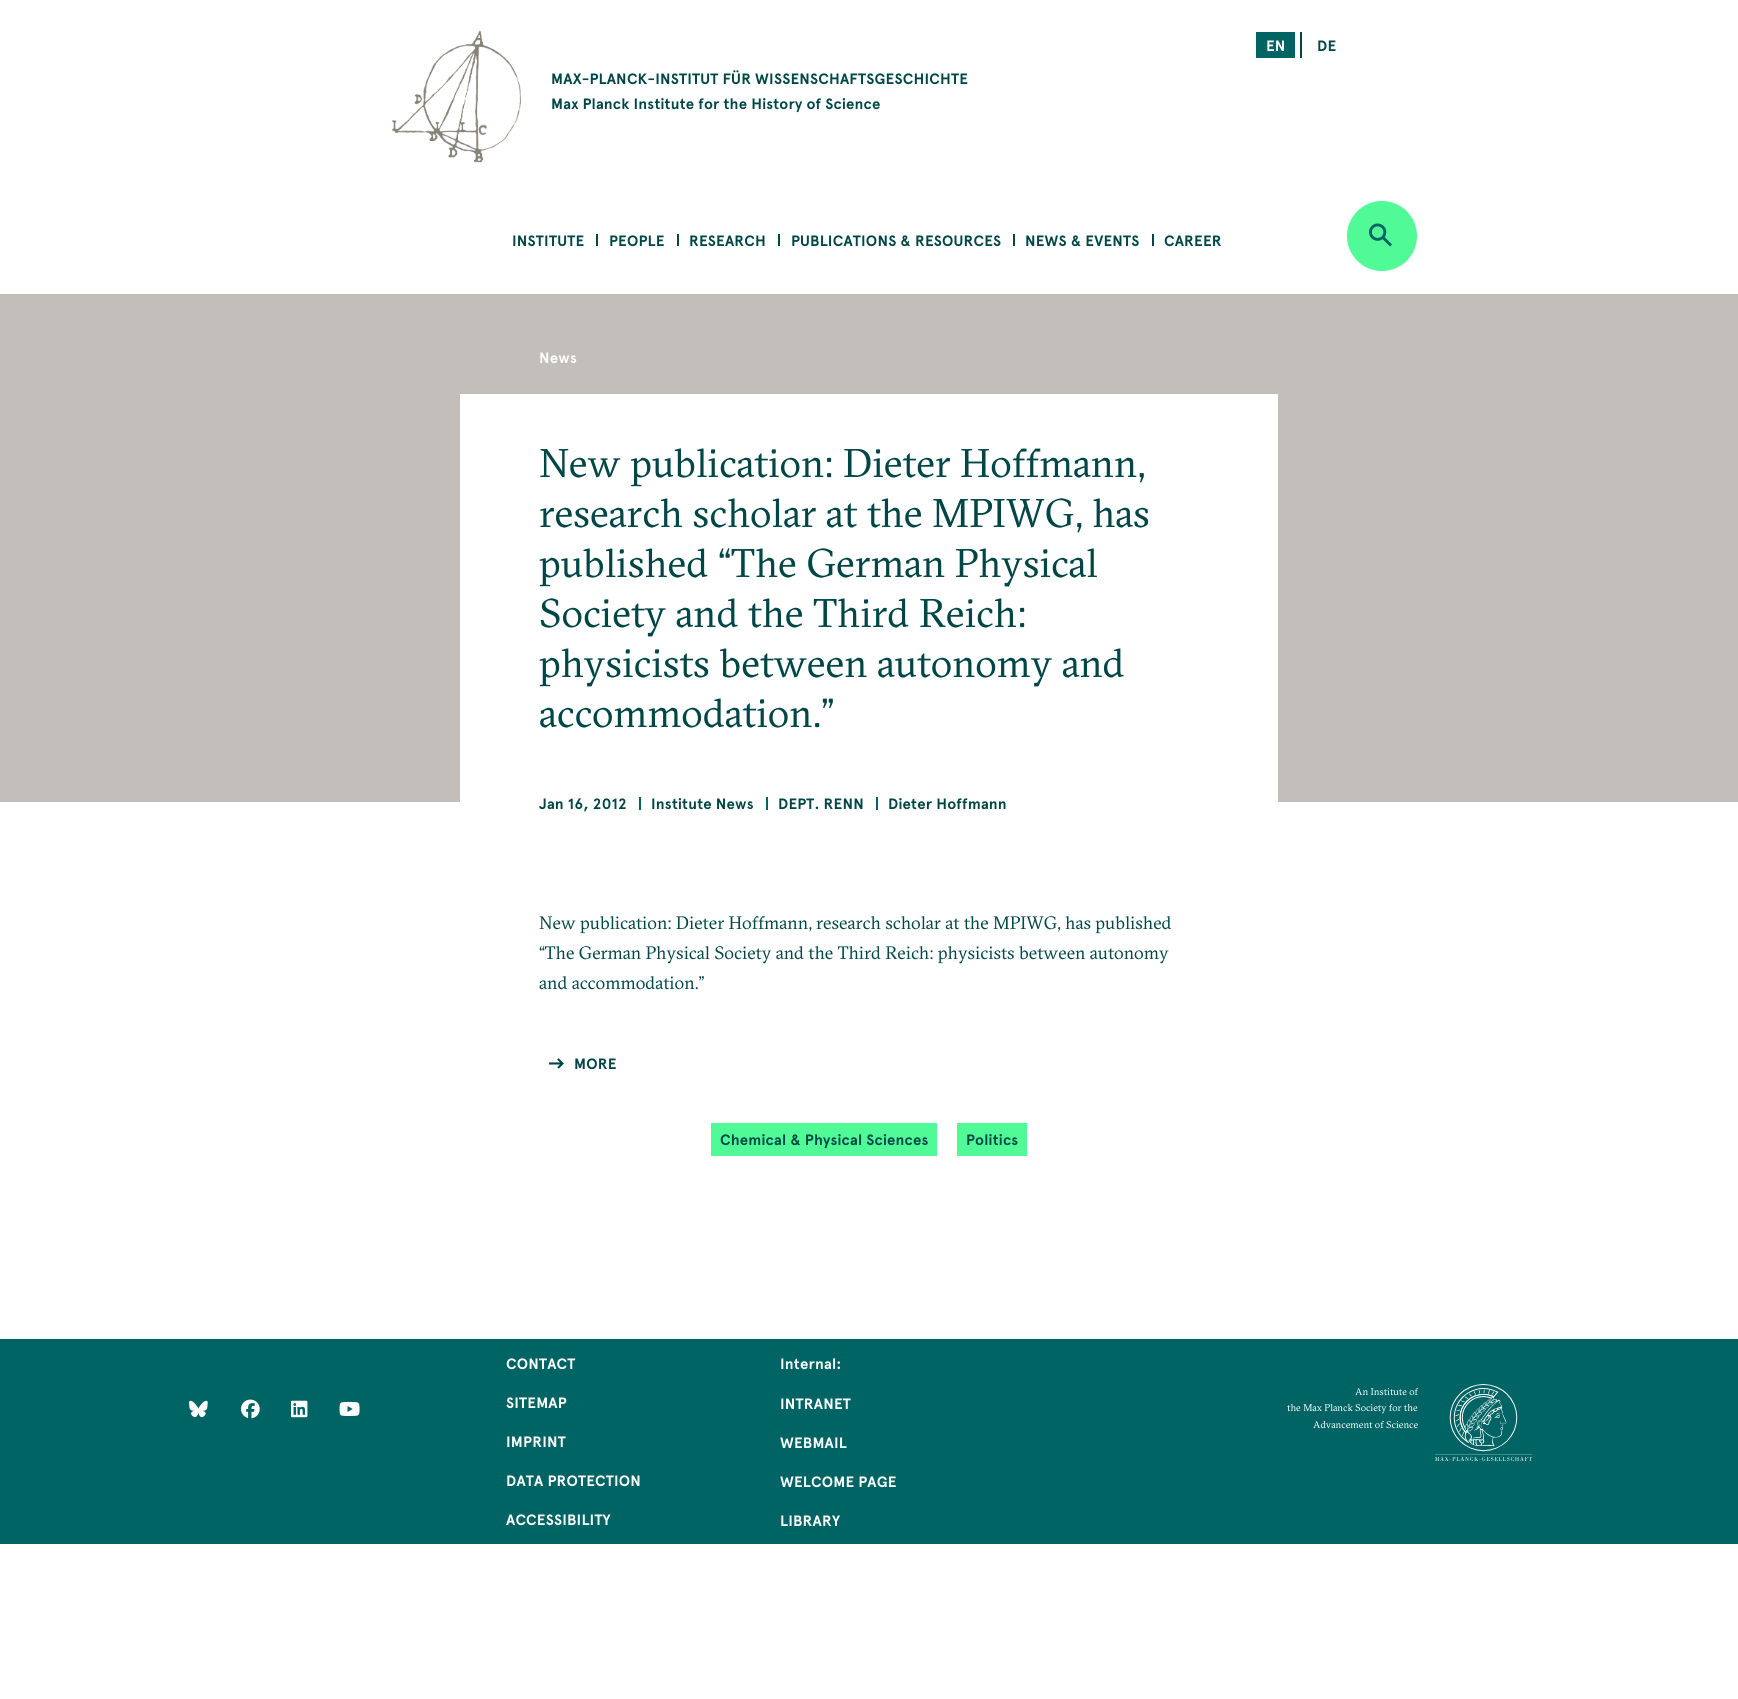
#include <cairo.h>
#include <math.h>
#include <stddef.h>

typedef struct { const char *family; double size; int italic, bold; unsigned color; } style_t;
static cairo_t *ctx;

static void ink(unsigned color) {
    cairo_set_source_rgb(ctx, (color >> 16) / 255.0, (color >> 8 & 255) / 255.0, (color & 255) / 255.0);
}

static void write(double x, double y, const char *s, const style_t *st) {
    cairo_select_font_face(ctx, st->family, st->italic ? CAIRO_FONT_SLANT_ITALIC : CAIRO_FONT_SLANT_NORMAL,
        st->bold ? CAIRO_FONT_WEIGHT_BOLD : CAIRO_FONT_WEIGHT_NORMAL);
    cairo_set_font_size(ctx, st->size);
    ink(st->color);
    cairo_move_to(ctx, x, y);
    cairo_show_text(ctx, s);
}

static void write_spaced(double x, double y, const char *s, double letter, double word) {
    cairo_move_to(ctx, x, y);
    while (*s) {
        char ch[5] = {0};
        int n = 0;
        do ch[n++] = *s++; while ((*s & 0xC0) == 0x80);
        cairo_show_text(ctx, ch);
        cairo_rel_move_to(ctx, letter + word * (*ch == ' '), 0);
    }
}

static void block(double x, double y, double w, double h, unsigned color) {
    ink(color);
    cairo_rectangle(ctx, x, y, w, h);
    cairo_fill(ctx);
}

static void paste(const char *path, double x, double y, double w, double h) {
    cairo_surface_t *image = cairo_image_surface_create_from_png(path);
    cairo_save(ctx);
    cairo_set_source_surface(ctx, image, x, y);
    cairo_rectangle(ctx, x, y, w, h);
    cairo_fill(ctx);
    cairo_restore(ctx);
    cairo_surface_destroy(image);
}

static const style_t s1 = {"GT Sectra", 40, 0, 0, 0x004646};
static const style_t s2 = {"GT Sectra", 18, 0, 0, 0x004646};
static const style_t s3 = {"GT Sectra", 9.9, 0, 0, 0xffffff};

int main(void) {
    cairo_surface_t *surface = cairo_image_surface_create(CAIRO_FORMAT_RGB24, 1738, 1699);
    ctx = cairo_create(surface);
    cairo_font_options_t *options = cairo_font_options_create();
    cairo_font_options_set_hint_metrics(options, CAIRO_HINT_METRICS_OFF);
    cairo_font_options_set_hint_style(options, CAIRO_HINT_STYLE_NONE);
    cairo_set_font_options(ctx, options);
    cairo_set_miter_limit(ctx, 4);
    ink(0xffffff);
    cairo_paint(ctx);
    block(1300, 32, 2, 26, 0x004646);
    block(1256, 32, 39, 26, 0x006464);
    cairo_select_font_face(ctx, "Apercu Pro", CAIRO_FONT_SLANT_NORMAL, CAIRO_FONT_WEIGHT_BOLD);
    cairo_set_font_size(ctx, 15);
    ink(0xffffff);
    write_spaced(1266, 51, "EN", 0.2, 0);
    ink(0x004646);
    write_spaced(1317, 51, "DE", 0.2, 0);
    paste("pic1.png", 392, 30, 129, 133);
    write_spaced(551, 84, "MAX-PLANCK-INSTITUT FÜR WISSENSCHAFTSGESCHICHTE", 0.2, 0);
    write_spaced(551, 109, "Max Planck Institute for the History of Science", 0.2, 0);
    write_spaced(512, 246, "INSTITUTE", 0.2, 0);
    block(596, 234, 2, 12, 0x004646);
    write_spaced(609, 246, "PEOPLE", 0.2, 0);
    block(677, 234, 2, 12, 0x004646);
    write_spaced(689, 246, "RESEARCH", 0.2, 0);
    block(778, 234, 2, 12, 0x004646);
    write_spaced(791, 246, "PUBLICATIONS & RESOURCES", 0.2, 0);
    block(1013, 234, 2, 12, 0x004646);
    write_spaced(1025, 246, "NEWS & EVENTS", 0.2, 0);
    block(1152, 234, 2, 12, 0x004646);
    write_spaced(1164, 246, "CAREER", 0.2, 0);
    ink(0x50fa96);
    cairo_new_path(ctx);
    cairo_arc(ctx, 1382, 236, 35, 0, 2 * M_PI);
    cairo_fill(ctx);
    paste("pic2.png", 1369, 223, 23, 24);
    block(0, 294, 1738, 508, 0xc3beb9);
    block(460, 394, 818, 408, 0xffffff);
    write_spaced(539, 363, "News", 0.2, 0);
    write(539, 477, "New publication: Dieter Hoffmann,", &s1);
    write(539, 527, "research scholar at the MPIWG, has", &s1);
    write(539, 577, "published “The German Physical", &s1);
    write(539, 627, "Society and the Third Reich:", &s1);
    write(539, 677, "physicists between autonomy and", &s1);
    write(539, 727, "accommodation.”", &s1);
    cairo_select_font_face(ctx, "Apercu Pro", CAIRO_FONT_SLANT_NORMAL, CAIRO_FONT_WEIGHT_BOLD);
    cairo_set_font_size(ctx, 15);
    write_spaced(539, 809, "Jan 16, 2012", 0.2, 0);
    block(639, 797, 2, 13, 0x006464);
    ink(0x004646);
    write_spaced(651, 809, "Institute News", 0.2, 0);
    block(766, 797, 2, 13, 0x006464);
    ink(0x004646);
    write_spaced(778, 809, "DEPT. RENN", 0.2, 0);
    block(876, 797, 2, 13, 0x006464);
    ink(0x004646);
    write_spaced(888, 809, "Dieter Hoffmann", 0.2, 0);
    write(539, 929, "New publication: Dieter Hoffmann, research scholar at the MPIWG, has published", &s2);
    write(539, 959, "“The German Physical Society and the Third Reich: physicists between autonomy", &s2);
    write(539, 989, "and accommodation.”", &s2);
    paste("pic3.png", 549, 1058, 15, 11);
    cairo_select_font_face(ctx, "Apercu Pro", CAIRO_FONT_SLANT_NORMAL, CAIRO_FONT_WEIGHT_BOLD);
    cairo_set_font_size(ctx, 15);
    write_spaced(574, 1069, "MORE", 0.2, 0);
    block(711, 1123, 226, 33, 0x50fa96);
    ink(0x004646);
    write_spaced(720, 1145, "Chemical & Physical Sciences", 0.2, 0);
    block(957, 1123, 70, 33, 0x50fa96);
    ink(0x004646);
    write_spaced(966, 1145, "Politics", 0.2, 0);
    block(0, 1339, 1738, 205, 0x006464);
    paste("pic4.png", 189, 1400, 19, 18);
    paste("pic5.png", 241, 1399, 19, 20);
    paste("pic6.png", 291, 1400, 17, 18);
    paste("pic7.png", 339, 1401, 21, 15);
    ink(0xffffff);
    write_spaced(506, 1369, "CONTACT", 0.2, 0);
    write_spaced(506, 1408, "SITEMAP", 0.2, 0);
    write_spaced(506, 1447, "IMPRINT", 0.2, 0);
    write_spaced(506, 1486, "DATA PROTECTION", 0.2, 0);
    write_spaced(506, 1525, "ACCESSIBILITY", 0.2, 0);
    write_spaced(780, 1369, "Internal:", 0.2, 0);
    write_spaced(780, 1409, "INTRANET", 0.2, 0);
    write_spaced(780, 1448, "WEBMAIL", 0.2, 0);
    write_spaced(780, 1487, "WELCOME PAGE", 0.2, 0);
    write_spaced(780, 1526, "LIBRARY", 0.2, 0);
    write(1355, 1395, "An Institute of", &s3);
    write(1287, 1411, "the Max Planck Society for the", &s3);
    write(1313, 1428, "Advancement of Science", &s3);
    paste("pic8.png", 1435, 1384, 97, 77);
    cairo_surface_write_to_png(surface, "screenshot.png");
    cairo_font_options_destroy(options);
    cairo_destroy(ctx);
    cairo_surface_destroy(surface);
    return 0;
}
